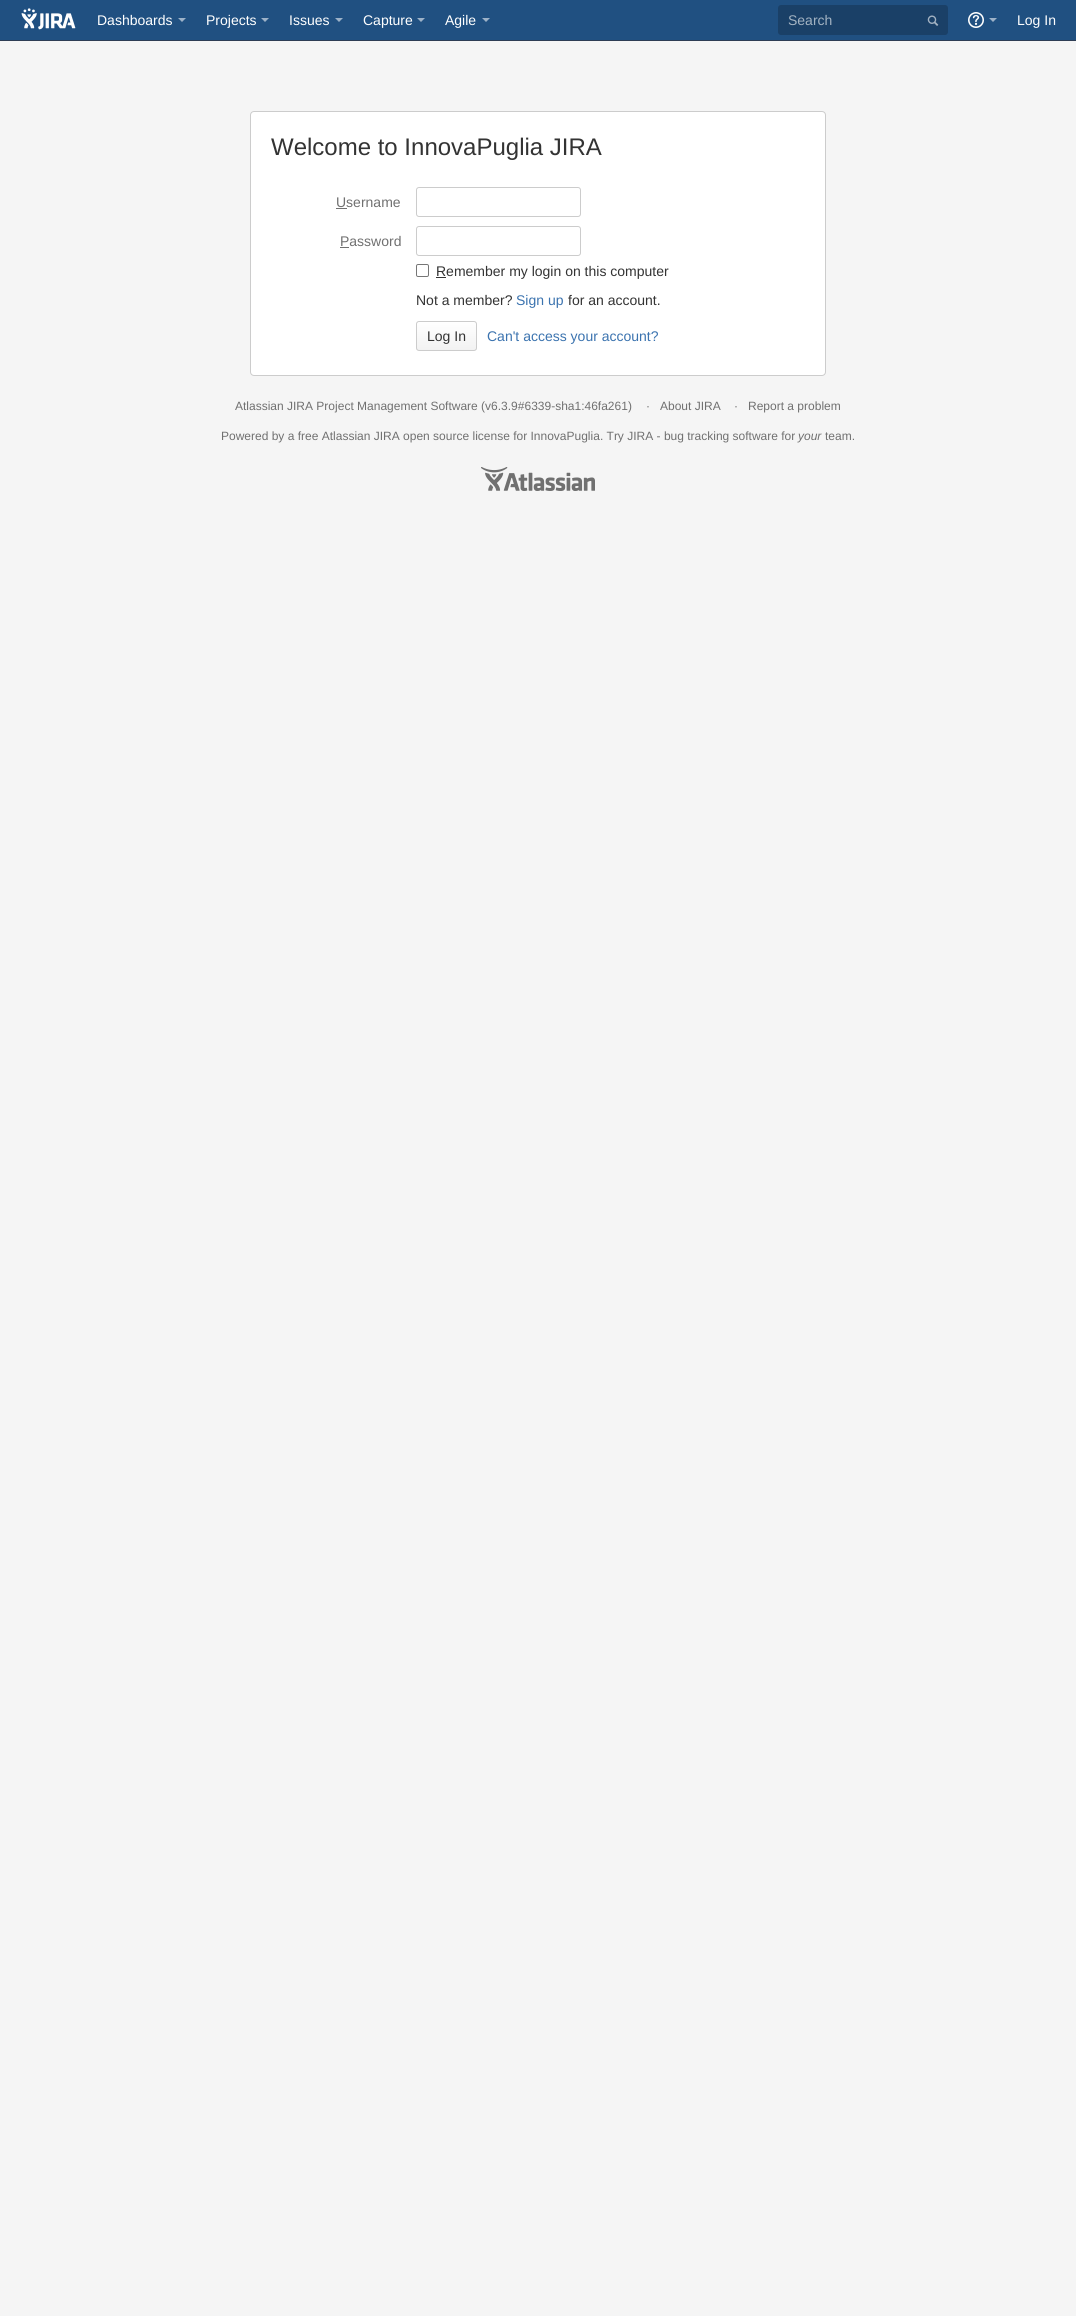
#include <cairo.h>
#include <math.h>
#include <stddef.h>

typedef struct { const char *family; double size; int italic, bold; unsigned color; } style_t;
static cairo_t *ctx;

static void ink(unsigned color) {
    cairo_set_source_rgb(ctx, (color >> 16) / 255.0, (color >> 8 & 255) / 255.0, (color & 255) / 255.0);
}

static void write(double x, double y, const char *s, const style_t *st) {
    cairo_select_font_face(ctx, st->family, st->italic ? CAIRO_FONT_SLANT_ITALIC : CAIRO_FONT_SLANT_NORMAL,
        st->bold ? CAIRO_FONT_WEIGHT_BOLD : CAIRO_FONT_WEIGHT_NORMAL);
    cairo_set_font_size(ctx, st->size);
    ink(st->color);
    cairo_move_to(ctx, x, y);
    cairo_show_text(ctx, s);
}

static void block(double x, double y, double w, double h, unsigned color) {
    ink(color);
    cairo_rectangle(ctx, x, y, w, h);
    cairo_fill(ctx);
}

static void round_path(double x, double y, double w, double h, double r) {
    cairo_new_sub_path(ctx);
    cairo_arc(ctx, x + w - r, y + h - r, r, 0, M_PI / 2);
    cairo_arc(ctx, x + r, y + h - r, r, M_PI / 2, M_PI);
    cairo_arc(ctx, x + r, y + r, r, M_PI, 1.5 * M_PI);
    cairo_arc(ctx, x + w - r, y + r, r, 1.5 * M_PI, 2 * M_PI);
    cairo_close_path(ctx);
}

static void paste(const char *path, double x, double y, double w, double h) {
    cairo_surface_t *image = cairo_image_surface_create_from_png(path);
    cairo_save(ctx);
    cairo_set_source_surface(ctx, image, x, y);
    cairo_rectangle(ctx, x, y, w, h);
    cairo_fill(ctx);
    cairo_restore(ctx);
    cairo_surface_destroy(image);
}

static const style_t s1 = {"Liberation Sans", 14, 0, 0, 0xffffff};
static const style_t s2 = {"Liberation Sans", 14, 0, 0, 0xa3b3c2};
static const style_t s3 = {"Liberation Sans", 24, 0, 0, 0x333333};
static const style_t s4 = {"Liberation Sans", 14, 0, 0, 0x707070};
static const style_t s5 = {"Liberation Sans", 14, 0, 0, 0x333333};
static const style_t s6 = {"Liberation Sans", 14, 0, 0, 0x3b73af};
static const style_t s7 = {"Liberation Sans", 12, 0, 0, 0x707070};
static const style_t s8 = {"Liberation Sans", 12, 1, 0, 0x707070};

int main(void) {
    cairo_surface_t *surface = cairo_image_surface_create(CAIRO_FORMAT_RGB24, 1076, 2316);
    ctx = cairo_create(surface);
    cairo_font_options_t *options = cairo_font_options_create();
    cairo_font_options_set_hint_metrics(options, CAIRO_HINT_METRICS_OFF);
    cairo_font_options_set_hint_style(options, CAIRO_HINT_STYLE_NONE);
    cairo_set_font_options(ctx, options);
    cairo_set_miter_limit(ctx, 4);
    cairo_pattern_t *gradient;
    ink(0xf5f5f5);
    cairo_paint(ctx);
    block(0, 0, 1076, 40, 0x205081);
    block(0, 40, 1076, 1, 0x2e3d54);
    paste("pic1.png", 21, 8, 55, 22);
    write(97, 25, "Dashboards", &s1);
    ink(0x9db2c8);
    cairo_new_path(ctx);
    cairo_move_to(ctx, 178, 18);
    cairo_line_to(ctx, 186, 18);
    cairo_line_to(ctx, 182, 22);
    cairo_close_path(ctx);
    cairo_fill(ctx);
    write(206, 25, "Projects", &s1);
    ink(0x9db2c8);
    cairo_new_path(ctx);
    cairo_move_to(ctx, 261, 18);
    cairo_line_to(ctx, 269, 18);
    cairo_line_to(ctx, 265, 22);
    cairo_close_path(ctx);
    cairo_fill(ctx);
    write(289, 25, "Issues", &s1);
    ink(0x9db2c8);
    cairo_new_path(ctx);
    cairo_move_to(ctx, 335, 18);
    cairo_line_to(ctx, 343, 18);
    cairo_line_to(ctx, 339, 22);
    cairo_close_path(ctx);
    cairo_fill(ctx);
    write(363, 25, "Capture", &s1);
    ink(0x9db2c8);
    cairo_new_path(ctx);
    cairo_move_to(ctx, 417, 18);
    cairo_line_to(ctx, 425, 18);
    cairo_line_to(ctx, 421, 22);
    cairo_close_path(ctx);
    cairo_fill(ctx);
    write(445, 25, "Agile", &s1);
    ink(0x9db2c8);
    cairo_new_path(ctx);
    cairo_move_to(ctx, 482, 18);
    cairo_line_to(ctx, 490, 18);
    cairo_line_to(ctx, 486, 22);
    cairo_close_path(ctx);
    cairo_fill(ctx);
    ink(0x1a4067);
    round_path(778, 5, 170, 30, 3);
    cairo_fill(ctx);
    write(788, 25, "Search", &s2);
    paste("pic2.png", 927, 15, 12, 11);
    paste("pic3.png", 968, 12, 16, 16);
    ink(0x9db2c8);
    cairo_new_path(ctx);
    cairo_move_to(ctx, 989, 18);
    cairo_line_to(ctx, 997, 18);
    cairo_line_to(ctx, 993, 22);
    cairo_close_path(ctx);
    cairo_fill(ctx);
    write(1017, 25, "Log In", &s1);
    round_path(250.5, 111.5, 575, 264, 3.5);
    cairo_fill_preserve(ctx);
    ink(0xcccccc);
    cairo_set_line_width(ctx, 1);
    cairo_stroke(ctx);
    write(271, 155, "Welcome to InnovaPuglia JIRA", &s3);
    write(336, 207, "Username", &s4);
    block(336, 208, 11, 1, 0x707070);
    round_path(416.5, 187.5, 164, 29, 2.5);
    ink(0xcccccc);
    cairo_stroke(ctx);
    write(340, 246, "Password", &s4);
    block(340, 247, 9, 1, 0x707070);
    round_path(416.5, 226.5, 164, 29, 2.5);
    ink(0xcccccc);
    cairo_stroke(ctx);
    round_path(416.5, 264.5, 12, 12, 1.5);
    ink(0x767676);
    cairo_stroke(ctx);
    block(436, 277, 10, 1, 0x333333);
    write(436, 276, "Remember my login on this computer", &s5);
    write(416, 305, "Not a member?", &s5);
    write(516, 305, "Sign up", &s6);
    write(568, 305, "for an account.", &s5);
    cairo_save(ctx);
    round_path(416, 321, 61, 30, 3);
    cairo_clip(ctx);
    gradient = cairo_pattern_create_linear(447, 322, 447, 350);
    cairo_pattern_add_color_stop_rgba(gradient, 0, 1, 1, 1, 1);
    cairo_pattern_add_color_stop_rgba(gradient, 1, 0.949, 0.949, 0.949, 1);
    cairo_set_source(ctx, gradient);
    cairo_pattern_destroy(gradient);
    cairo_rectangle(ctx, 416, 322, 61, 28);
    cairo_fill(ctx);
    cairo_restore(ctx);
    round_path(416.5, 321.5, 60, 29, 2.5);
    ink(0xcccccc);
    cairo_stroke(ctx);
    write(427, 341, "Log In", &s5);
    write(487, 341, "Can't access your account?", &s6);
    write(235, 410, "Atlassian JIRA Project Management Software (v6.3.9#6339-sha1:46fa261)", &s7);
    write(646, 410, "·", &s7);
    write(660, 410, "About JIRA", &s7);
    write(734, 410, "·", &s7);
    write(748, 410, "Report a problem", &s7);
    write(221, 440, "Powered by a free Atlassian JIRA open source license for InnovaPuglia. Try JIRA - bug tracking software for", &s7);
    write(798, 440, "your", &s8);
    write(825, 440, "team.", &s7);
    paste("pic4.png", 481, 467, 114, 24);
    cairo_surface_write_to_png(surface, "screenshot.png");
    cairo_font_options_destroy(options);
    cairo_destroy(ctx);
    cairo_surface_destroy(surface);
    return 0;
}
